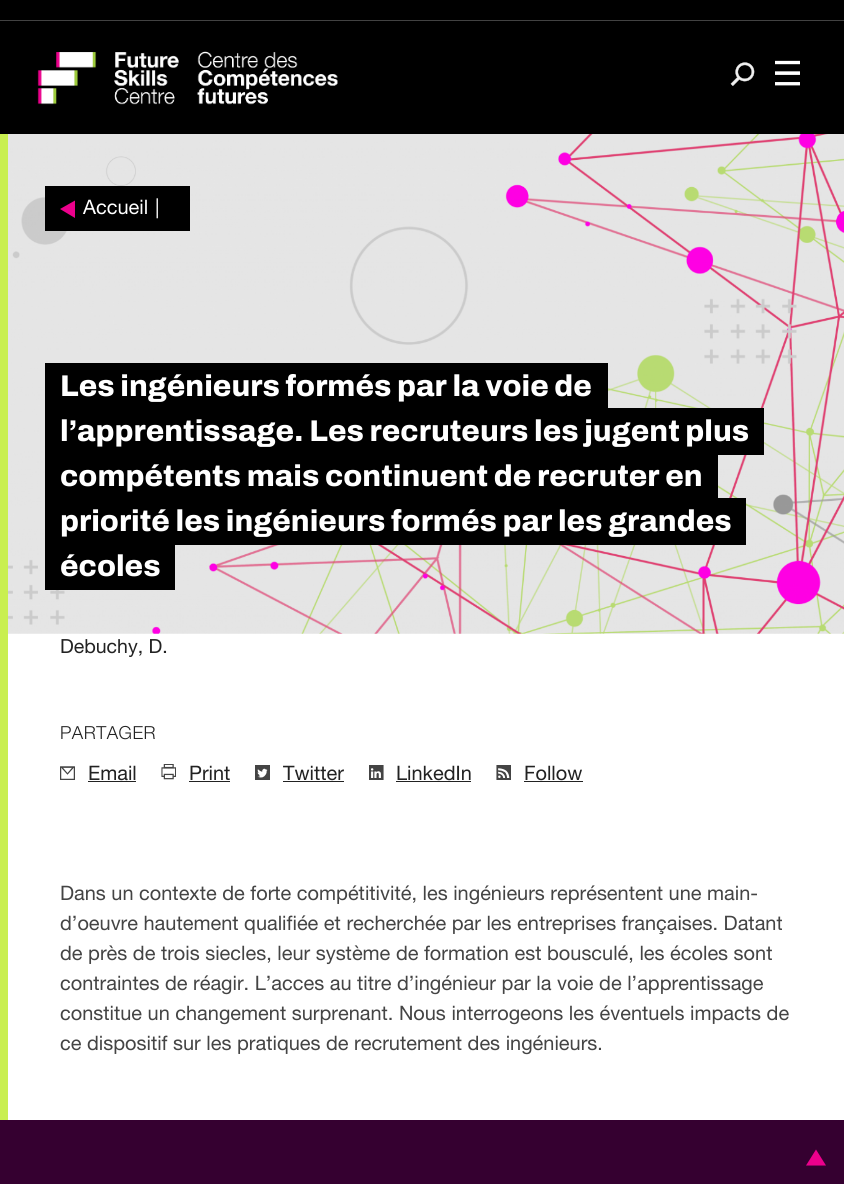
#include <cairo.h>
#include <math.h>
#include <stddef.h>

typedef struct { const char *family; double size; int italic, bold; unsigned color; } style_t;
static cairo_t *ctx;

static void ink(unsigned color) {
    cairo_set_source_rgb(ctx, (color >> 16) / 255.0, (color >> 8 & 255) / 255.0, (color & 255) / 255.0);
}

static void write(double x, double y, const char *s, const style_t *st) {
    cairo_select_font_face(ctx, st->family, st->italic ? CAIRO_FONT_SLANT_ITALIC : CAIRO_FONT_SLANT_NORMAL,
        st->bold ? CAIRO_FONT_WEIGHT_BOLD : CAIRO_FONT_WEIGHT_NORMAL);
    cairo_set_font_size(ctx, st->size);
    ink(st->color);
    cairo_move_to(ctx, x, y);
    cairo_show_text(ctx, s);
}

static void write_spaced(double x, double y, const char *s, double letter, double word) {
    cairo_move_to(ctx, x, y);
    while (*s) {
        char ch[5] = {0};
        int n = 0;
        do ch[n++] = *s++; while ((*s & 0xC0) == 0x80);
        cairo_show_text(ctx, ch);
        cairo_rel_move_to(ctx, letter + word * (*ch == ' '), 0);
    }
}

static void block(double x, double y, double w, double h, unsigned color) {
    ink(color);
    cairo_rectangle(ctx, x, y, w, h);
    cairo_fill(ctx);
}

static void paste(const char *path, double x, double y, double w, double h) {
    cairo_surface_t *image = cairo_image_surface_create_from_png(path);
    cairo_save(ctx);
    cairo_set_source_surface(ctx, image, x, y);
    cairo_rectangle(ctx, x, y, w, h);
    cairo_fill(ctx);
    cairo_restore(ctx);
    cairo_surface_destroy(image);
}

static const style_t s1 = {"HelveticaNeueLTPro", 20, 0, 0, 0xffffff};
static const style_t s2 = {"Archivo ExtraBold", 30, 0, 0, 0xffffff};
static const style_t s3 = {"HelveticaNeueLTPro", 19.5, 0, 0, 0x222222};
static const style_t s4 = {"HelveticaNeueLTPro", 19.95, 0, 0, 0x222222};
static const style_t s5 = {"HelveticaNeueLTPro", 19.95, 0, 0, 0x444444};

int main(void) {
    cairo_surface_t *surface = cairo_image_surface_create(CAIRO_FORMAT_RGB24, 844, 1184);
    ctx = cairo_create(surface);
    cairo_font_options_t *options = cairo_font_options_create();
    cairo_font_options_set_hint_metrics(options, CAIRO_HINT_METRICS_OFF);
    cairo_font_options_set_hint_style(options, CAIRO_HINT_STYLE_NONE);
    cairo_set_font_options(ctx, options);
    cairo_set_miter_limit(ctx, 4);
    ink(0xffffff);
    cairo_paint(ctx);
    block(0, 0, 844, 134, 0x000000);
    block(0, 20, 844, 1, 0x424242);
    paste("pic1.png", 37, 51, 301, 54);
    paste("pic2.png", 730, 62, 25, 24);
    paste("pic3.png", 775, 60, 25, 26);
    paste("pic4.png", 8, 134, 836, 500);
    ink(0x000000);
    cairo_new_path(ctx);
    cairo_move_to(ctx, 45, 186);
    cairo_line_to(ctx, 45, 231);
    cairo_line_to(ctx, 60, 231);
    cairo_line_to(ctx, 60, 186);
    cairo_line_to(ctx, 160, 186);
    cairo_close_path(ctx);
    cairo_fill(ctx);
    cairo_new_path(ctx);
    cairo_move_to(ctx, 75, 186);
    cairo_line_to(ctx, 175, 186);
    cairo_line_to(ctx, 175, 231);
    cairo_line_to(ctx, 190, 231);
    cairo_line_to(ctx, 190, 186);
    cairo_close_path(ctx);
    cairo_fill(ctx);
    block(60, 186, 115, 45, 0x000000);
    ink(0xec008c);
    cairo_set_fill_rule(ctx, CAIRO_FILL_RULE_EVEN_ODD);
    cairo_new_path(ctx);
    cairo_move_to(ctx, 60, 209);
    cairo_line_to(ctx, 75, 200.5);
    cairo_line_to(ctx, 75, 218);
    cairo_close_path(ctx);
    cairo_fill(ctx);
    write(83, 214, "Accueil", &s1);
    write(155, 214, "|", &s1);
    block(60, 363, 548, 45, 0x000000);
    write(60, 396, "Les ingénieurs formés par la voie de", &s2);
    block(60, 408, 704, 47, 0x000000);
    write(60, 441, "l’apprentissage. Les recruteurs les jugent plus", &s2);
    block(60, 455, 658, 43, 0x000000);
    write(60, 486, "compétents mais continuent de recruter en", &s2);
    block(45, 363, 15, 227, 0x000000);
    block(60, 498, 686, 47, 0x000000);
    write(60, 531, "priorité les ingénieurs formés par les grandes", &s2);
    block(60, 545, 115, 45, 0x000000);
    write(60, 576, "écoles", &s2);
    block(0, 134, 8, 986, 0xc9ef50);
    write(60, 653, "Debuchy, D.", &s3);
    cairo_select_font_face(ctx, "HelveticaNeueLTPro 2", CAIRO_FONT_SLANT_NORMAL, CAIRO_FONT_WEIGHT_NORMAL);
    cairo_set_font_size(ctx, 18);
    write_spaced(60, 739, "PARTAGER", 0.5, 0);
    paste("pic5.png", 60, 766, 15, 14);
    write(88, 780, "Email", &s4);
    block(88, 781, 48, 1, 0x222222);
    paste("pic6.png", 161, 764, 15, 16);
    write(189, 780, "Print", &s4);
    block(189, 781, 41, 1, 0x222222);
    paste("pic7.png", 255, 765, 15, 15);
    write(283, 780, "Twitter", &s4);
    block(283, 781, 61, 1, 0x222222);
    paste("pic8.png", 369, 765, 15, 15);
    write(396, 780, "LinkedIn", &s4);
    block(396, 781, 75, 1, 0x222222);
    paste("pic9.png", 496, 765, 15, 15);
    write(524, 780, "Follow", &s4);
    block(524, 781, 59, 1, 0x222222);
    write(60, 900, "Dans un contexte de forte compétitivité, les ingénieurs représentent une main-", &s5);
    write(60, 930, "d’oeuvre hautement qualifiée et recherchée par les entreprises françaises. Datant", &s5);
    write(60, 960, "de près de trois siecles, leur système de formation est bousculé, les écoles sont", &s5);
    write(60, 990, "contraintes de réagir. L’acces au titre d’ingénieur par la voie de l’apprentissage", &s5);
    write(60, 1020, "constitue un changement surprenant. Nous interrogeons les éventuels impacts de", &s5);
    write(60, 1050, "ce dispositif sur les pratiques de recrutement des ingénieurs.", &s5);
    block(0, 1120, 844, 64, 0x350030);
    ink(0xec008c);
    cairo_set_fill_rule(ctx, CAIRO_FILL_RULE_WINDING);
    cairo_new_path(ctx);
    cairo_move_to(ctx, 826, 1165.5);
    cairo_line_to(ctx, 806, 1165.5);
    cairo_line_to(ctx, 816, 1149.5);
    cairo_close_path(ctx);
    cairo_fill(ctx);
    cairo_surface_write_to_png(surface, "screenshot.png");
    cairo_font_options_destroy(options);
    cairo_destroy(ctx);
    cairo_surface_destroy(surface);
    return 0;
}
